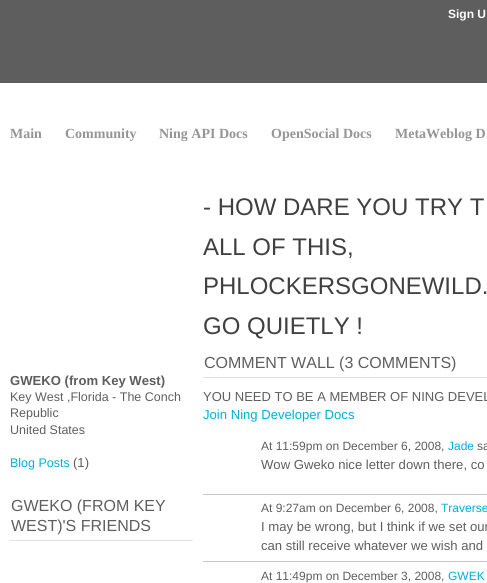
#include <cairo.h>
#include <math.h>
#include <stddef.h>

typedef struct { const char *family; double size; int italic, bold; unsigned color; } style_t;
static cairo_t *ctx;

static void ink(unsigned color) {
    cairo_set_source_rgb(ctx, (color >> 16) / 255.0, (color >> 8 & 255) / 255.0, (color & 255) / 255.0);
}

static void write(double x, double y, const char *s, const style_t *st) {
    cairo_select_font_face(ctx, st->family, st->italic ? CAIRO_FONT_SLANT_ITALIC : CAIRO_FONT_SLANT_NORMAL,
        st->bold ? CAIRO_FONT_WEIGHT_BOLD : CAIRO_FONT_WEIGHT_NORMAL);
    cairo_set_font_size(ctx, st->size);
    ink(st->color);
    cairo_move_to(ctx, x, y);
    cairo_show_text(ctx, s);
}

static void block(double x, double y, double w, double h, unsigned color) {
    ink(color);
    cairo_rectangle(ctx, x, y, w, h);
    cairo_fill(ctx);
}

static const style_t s1 = {"Liberation Sans", 12, 0, 1, 0xffffff};
static const style_t s2 = {"Liberation Serif", 14, 0, 1, 0x959595};
static const style_t s3 = {"Liberation Sans", 13.1, 0, 1, 0x5e5e5e};
static const style_t s4 = {"Liberation Sans", 12.5, 0, 0, 0x5e5e5e};
static const style_t s5 = {"Liberation Sans", 12.5, 0, 0, 0x00b0d8};
static const style_t s6 = {"Liberation Sans", 13.1, 0, 0, 0x5e5e5e};
static const style_t s7 = {"Liberation Sans", 16, 0, 0, 0x5e5e5e};
static const style_t s8 = {"Liberation Sans", 24, 0, 0, 0x403f41};
static const style_t s9 = {"Liberation Sans", 13, 0, 0, 0x5e5e5e};
static const style_t s10 = {"Liberation Sans", 13.1, 0, 0, 0x00b0d8};
static const style_t s11 = {"Liberation Sans", 12, 0, 0, 0x5e5e5e};
static const style_t s12 = {"Liberation Sans", 12, 0, 0, 0x00b0d8};

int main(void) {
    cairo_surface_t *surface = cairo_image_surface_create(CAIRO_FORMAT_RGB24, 487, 583);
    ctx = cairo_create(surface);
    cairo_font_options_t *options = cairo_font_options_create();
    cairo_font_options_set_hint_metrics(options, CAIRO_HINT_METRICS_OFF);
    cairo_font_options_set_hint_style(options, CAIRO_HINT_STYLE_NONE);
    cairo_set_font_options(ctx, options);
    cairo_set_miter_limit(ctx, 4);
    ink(0xffffff);
    cairo_paint(ctx);
    block(0, 0, 487, 83, 0x5e5e5e);
    write(448, 18, "Sign U", &s1);
    write(10, 138, "Main", &s2);
    write(65, 138, "Community", &s2);
    write(159, 138, "Ning API Docs", &s2);
    write(271, 138, "OpenSocial Docs", &s2);
    write(395, 138, "MetaWeblog D", &s2);
    write(10, 385, "GWEKO (from Key West)", &s3);
    write(10, 401, "Key West ,Florida - The Conch", &s4);
    write(10, 417, "Republic", &s4);
    write(10, 434, "United States", &s4);
    write(10, 467, "Blog Posts", &s5);
    write(73, 467, "(1)", &s6);
    block(10, 540, 183, 1, 0xe1e1e1);
    write(11, 511, "GWEKO (FROM KEY", &s7);
    write(11, 531, "WEST)'S FRIENDS", &s7);
    write(203, 215, "- HOW DARE YOU TRY T", &s8);
    write(203, 255, "ALL OF THIS,", &s8);
    write(203, 294, "PHLOCKERSGONEWILD.", &s8);
    write(203, 334, "GO QUIETLY !", &s8);
    block(203, 377, 284, 1, 0xe1e1e1);
    write(204, 368, "COMMENT WALL (3 COMMENTS)", &s7);
    write(203, 401, "YOU NEED TO BE A MEMBER OF NING DEVEL", &s9);
    write(203, 419, "Join Ning Developer Docs", &s10);
    block(203, 494, 284, 1, 0xc9c9c9);
    write(261, 450, "At 11:59pm on December 6, 2008,", &s11);
    write(448, 450, "Jade", &s12);
    write(477, 450, "sa", &s11);
    write(261, 469, "Wow Gweko nice letter down there, co", &s6);
    block(203, 561, 284, 1, 0xc9c9c9);
    write(261, 512, "At 9:27am on December 6, 2008,", &s11);
    write(441, 512, "Traverse", &s12);
    write(261, 531, "I may be wrong, but I think if we set our", &s6);
    write(261, 550, "can still receive whatever we wish and", &s6);
    write(261, 580, "At 11:49pm on December 3, 2008,", &s11);
    write(448, 580, "GWEK", &s12);
    cairo_surface_write_to_png(surface, "screenshot.png");
    cairo_font_options_destroy(options);
    cairo_destroy(ctx);
    cairo_surface_destroy(surface);
    return 0;
}
